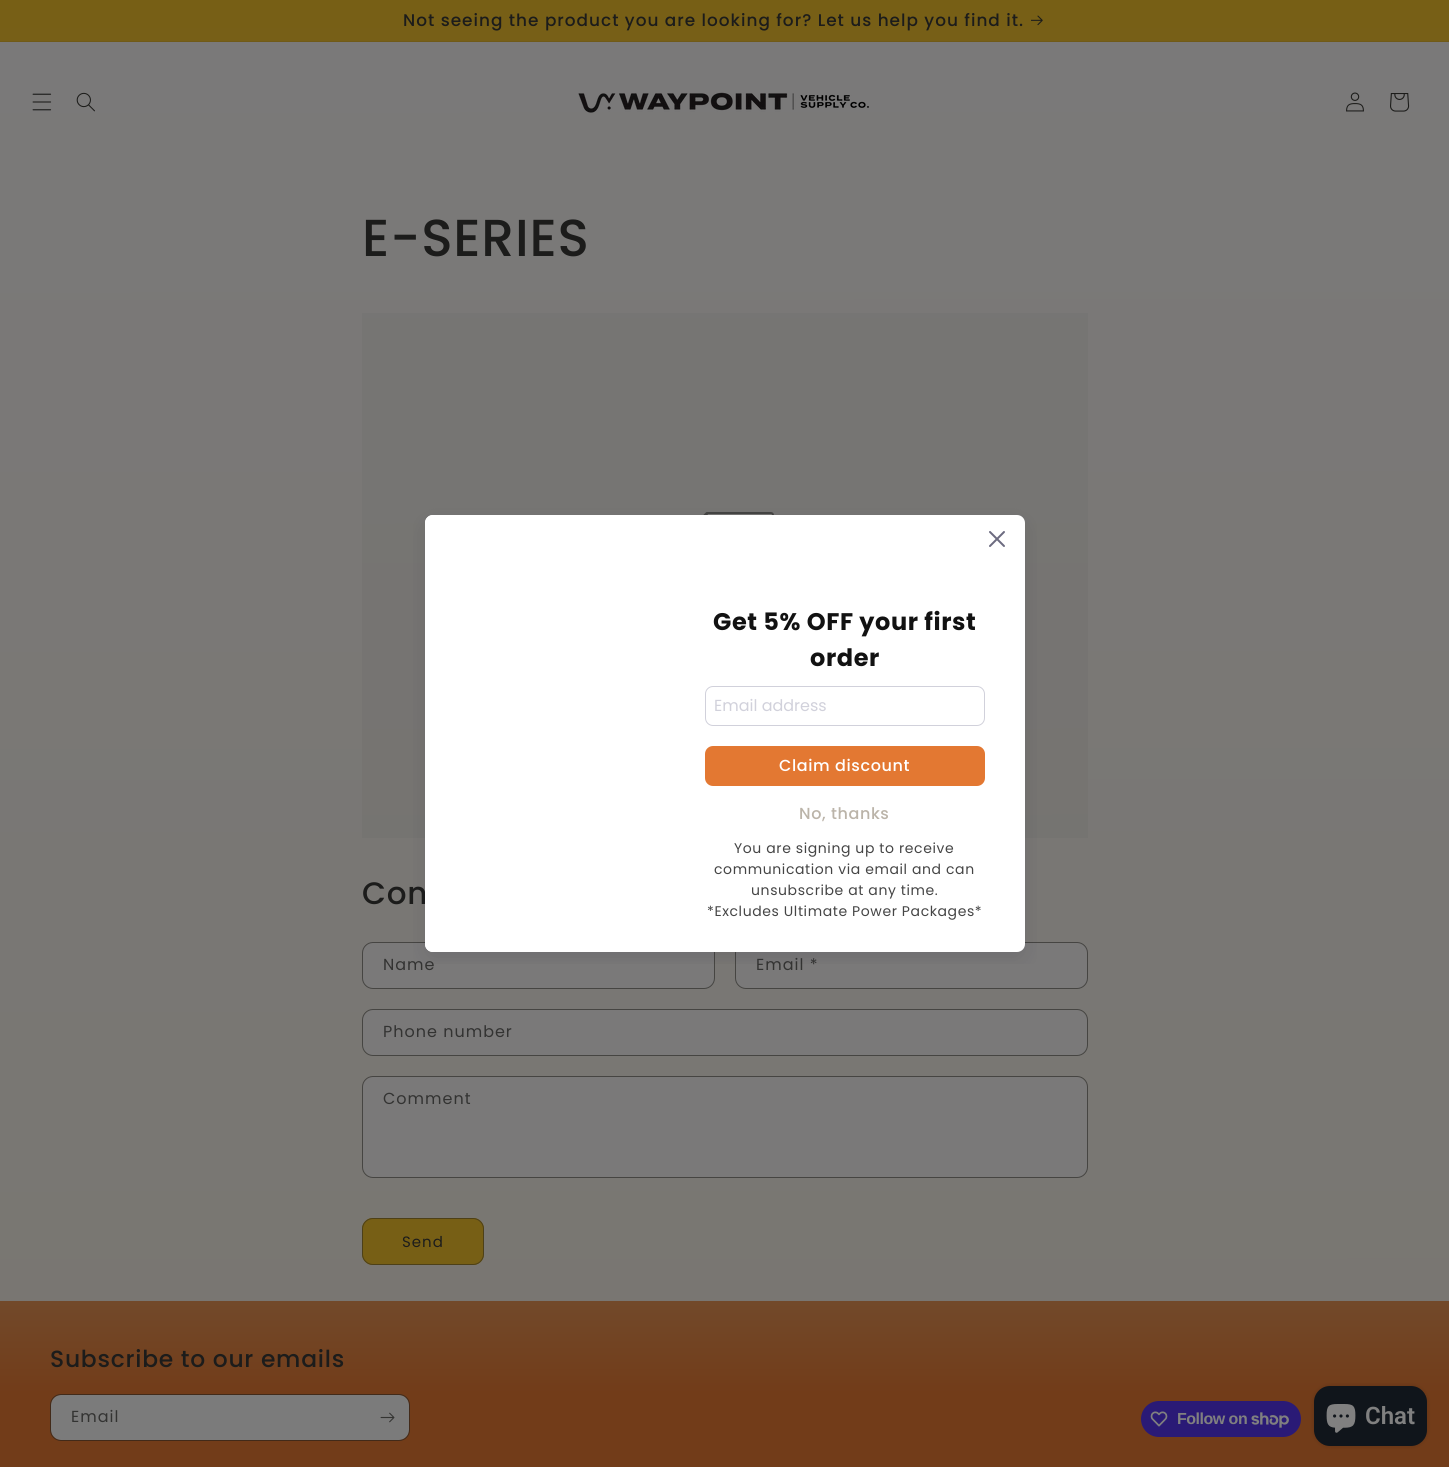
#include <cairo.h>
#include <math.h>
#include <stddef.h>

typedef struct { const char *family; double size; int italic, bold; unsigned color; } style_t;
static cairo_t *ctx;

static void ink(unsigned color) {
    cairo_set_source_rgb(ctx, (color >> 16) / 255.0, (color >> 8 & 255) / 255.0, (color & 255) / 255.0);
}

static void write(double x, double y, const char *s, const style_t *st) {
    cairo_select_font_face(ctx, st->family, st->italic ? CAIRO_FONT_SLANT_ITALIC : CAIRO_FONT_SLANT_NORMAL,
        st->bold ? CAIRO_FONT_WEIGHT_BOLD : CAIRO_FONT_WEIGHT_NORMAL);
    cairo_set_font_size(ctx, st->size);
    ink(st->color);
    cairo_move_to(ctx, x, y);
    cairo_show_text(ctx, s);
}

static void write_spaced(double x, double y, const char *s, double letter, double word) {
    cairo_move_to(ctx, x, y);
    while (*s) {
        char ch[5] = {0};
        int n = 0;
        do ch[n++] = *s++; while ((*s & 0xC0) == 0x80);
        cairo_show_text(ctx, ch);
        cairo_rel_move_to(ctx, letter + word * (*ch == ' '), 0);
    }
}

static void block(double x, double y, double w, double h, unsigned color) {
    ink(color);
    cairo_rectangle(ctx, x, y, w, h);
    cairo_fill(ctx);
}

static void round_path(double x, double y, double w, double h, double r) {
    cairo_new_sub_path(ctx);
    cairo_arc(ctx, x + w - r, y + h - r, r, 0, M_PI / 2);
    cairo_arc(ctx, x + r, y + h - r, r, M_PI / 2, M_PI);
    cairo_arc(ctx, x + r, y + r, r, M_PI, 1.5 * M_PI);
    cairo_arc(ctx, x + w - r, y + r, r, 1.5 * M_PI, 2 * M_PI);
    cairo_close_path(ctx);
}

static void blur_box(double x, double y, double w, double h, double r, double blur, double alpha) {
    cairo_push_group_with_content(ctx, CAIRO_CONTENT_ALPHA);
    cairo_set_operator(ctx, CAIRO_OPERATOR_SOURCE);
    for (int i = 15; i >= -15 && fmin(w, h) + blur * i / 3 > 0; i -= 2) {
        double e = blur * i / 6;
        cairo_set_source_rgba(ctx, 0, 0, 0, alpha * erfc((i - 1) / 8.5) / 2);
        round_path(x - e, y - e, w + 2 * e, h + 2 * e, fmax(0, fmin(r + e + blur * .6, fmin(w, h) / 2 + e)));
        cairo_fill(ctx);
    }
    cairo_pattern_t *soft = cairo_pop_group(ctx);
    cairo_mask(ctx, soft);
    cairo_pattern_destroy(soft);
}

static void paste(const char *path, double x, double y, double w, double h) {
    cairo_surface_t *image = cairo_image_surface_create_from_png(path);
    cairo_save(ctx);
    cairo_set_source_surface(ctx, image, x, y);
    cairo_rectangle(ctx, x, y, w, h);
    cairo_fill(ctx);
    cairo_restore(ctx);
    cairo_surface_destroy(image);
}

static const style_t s1 = {"Poppins", 16, 0, 0, 0xd1d1db};
static const style_t s2 = {"Roboto SemiBold", 24, 0, 0, 0x808080};

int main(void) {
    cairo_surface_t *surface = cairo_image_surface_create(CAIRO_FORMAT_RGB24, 1449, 1467);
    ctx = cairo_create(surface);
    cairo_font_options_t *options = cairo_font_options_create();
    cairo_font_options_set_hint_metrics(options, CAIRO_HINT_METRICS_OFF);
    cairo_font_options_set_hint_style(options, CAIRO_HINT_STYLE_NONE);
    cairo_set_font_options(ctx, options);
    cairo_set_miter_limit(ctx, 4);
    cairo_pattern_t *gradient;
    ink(0xffffff);
    cairo_paint(ctx);
    gradient = cairo_pattern_create_linear(724, 0, 725, 1467);
    cairo_pattern_add_color_stop_rgba(gradient, 0, 0.478, 0.475, 0.475, 1);
    cairo_pattern_add_color_stop_rgba(gradient, 1, 0.475, 0.463, 0.443, 1);
    cairo_set_source(ctx, gradient);
    cairo_pattern_destroy(gradient);
    cairo_rectangle(ctx, 0, 42, 1449, 1259);
    cairo_fill(ctx);
    gradient = cairo_pattern_create_linear(724, 0, 725, 1467);
    cairo_pattern_add_color_stop_rgba(gradient, 0, 0.463, 0.463, 0.459, 1);
    cairo_pattern_add_color_stop_rgba(gradient, 1, 0.459, 0.447, 0.431, 1);
    cairo_set_source(ctx, gradient);
    cairo_pattern_destroy(gradient);
    cairo_rectangle(ctx, 362, 313, 726, 525);
    cairo_fill(ctx);
    gradient = cairo_pattern_create_linear(725, 1467, 725, 0);
    cairo_pattern_add_color_stop_rgba(gradient, 0.05, 0.447, 0.235, 0.098, 1);
    cairo_pattern_add_color_stop_rgba(gradient, 0.26, 0.447, 0.408, 0.322, 1);
    cairo_pattern_add_color_stop_rgba(gradient, 1, 0.467, 0.373, 0.082, 1);
    cairo_set_source(ctx, gradient);
    cairo_pattern_destroy(gradient);
    cairo_rectangle(ctx, 0, 0, 1449, 41);
    cairo_fill(ctx);
    block(0, 41, 1449, 1, 0x705a18);
    cairo_select_font_face(ctx, "Poppins Medium", CAIRO_FONT_SLANT_NORMAL, CAIRO_FONT_WEIGHT_NORMAL);
    cairo_set_font_size(ctx, 16.9);
    ink(0x1c1c1b);
    write_spaced(403, 26, "Not seeing the product you are looking for? Let us help you find it.", 1, 0);
    paste("pic1.png", 1031, 15, 12, 11);
    paste("pic2.png", 32, 93, 20, 18);
    paste("pic3.png", 76, 92, 19, 20);
    paste("pic4.png", 578, 92, 291, 21);
    paste("pic5.png", 1346, 92, 18, 20);
    paste("pic6.png", 1390, 93, 20, 19);
    cairo_set_font_size(ctx, 52);
    write_spaced(362, 256, "E-SERIES", 0.75, 0);
    paste("pic7.png", 703, 512, 71, 3);
    cairo_set_font_size(ctx, 31);
    write_spaced(362, 904, "Con", 0.75, 0);
    ink(0x7a7979);
    round_path(363, 943, 351, 45, 10);
    cairo_fill(ctx);
    round_path(362.5, 942.5, 352, 46, 10.5);
    cairo_set_source_rgba(ctx, 0.11, 0.11, 0.106, 0.55);
    cairo_set_line_width(ctx, 1);
    cairo_stroke(ctx);
    cairo_select_font_face(ctx, "Poppins", CAIRO_FONT_SLANT_NORMAL, CAIRO_FONT_WEIGHT_NORMAL);
    cairo_set_font_size(ctx, 16);
    ink(0x333332);
    write_spaced(383, 970, "Name", 1, 0);
    ink(0x7a7979);
    round_path(736, 943, 351, 45, 10);
    cairo_fill(ctx);
    round_path(735.5, 942.5, 352, 46, 10.5);
    cairo_set_source_rgba(ctx, 0.11, 0.11, 0.106, 0.55);
    cairo_stroke(ctx);
    ink(0x333332);
    write_spaced(756, 970, "Email *", 1, 0);
    ink(0x7a7979);
    round_path(363, 1010, 724, 45, 10);
    cairo_fill(ctx);
    round_path(362.5, 1009.5, 725, 46, 10.5);
    cairo_set_source_rgba(ctx, 0.11, 0.11, 0.106, 0.55);
    cairo_stroke(ctx);
    ink(0x333332);
    write_spaced(383, 1037, "Phone number", 1, 0);
    ink(0x7a7979);
    round_path(363, 1077, 724, 100, 10);
    cairo_fill(ctx);
    round_path(362.5, 1076.5, 725, 101, 10.5);
    cairo_set_source_rgba(ctx, 0.11, 0.11, 0.106, 0.55);
    cairo_stroke(ctx);
    ink(0x333332);
    write_spaced(383, 1104, "Comment", 1, 0);
    ink(0x775f15);
    round_path(362, 1218, 122, 47, 11);
    cairo_fill(ctx);
    round_path(362.5, 1218.5, 121, 46, 10.5);
    cairo_stroke(ctx);
    round_path(362.5, 1218.5, 121, 46, 10.5);
    cairo_set_source_rgba(ctx, 0.11, 0.11, 0.106, 0.45);
    cairo_stroke(ctx);
    cairo_set_font_size(ctx, 15);
    ink(0x1c1c1b);
    write_spaced(402, 1247, "Send", 1, 0);
    cairo_save(ctx);
    cairo_rectangle(ctx, 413, 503, 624, 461);
    cairo_clip(ctx);
    ink(0x121127);
    blur_box(425, 523, 600, 437, 8, 10, 0.1);
    cairo_restore(ctx);
    ink(0xffffff);
    round_path(425, 515, 600, 437, 8);
    cairo_fill(ctx);
    cairo_new_path(ctx);
    cairo_move_to(ctx, 433, 515);
    cairo_line_to(ctx, 665, 515);
    cairo_line_to(ctx, 665, 952);
    cairo_line_to(ctx, 433, 952);
    cairo_curve_to(ctx, 428.5, 952, 425, 948.5, 425, 944);
    cairo_line_to(ctx, 425, 523);
    cairo_curve_to(ctx, 425, 518.5, 428.5, 515, 433, 515);
    cairo_close_path(ctx);
    cairo_fill(ctx);
    paste("pic8.png", 989, 531, 16, 16);
    cairo_select_font_face(ctx, "Poppins", CAIRO_FONT_SLANT_NORMAL, CAIRO_FONT_WEIGHT_BOLD);
    cairo_set_font_size(ctx, 24);
    ink(0x121212);
    write_spaced(713, 630, "Get 5% OFF your first", 0.6, 0);
    write_spaced(810, 666, "order", 0.6, 0);
    round_path(705.5, 686.5, 279, 39, 7.5);
    ink(0xd1d1db);
    cairo_stroke(ctx);
    write(714, 711, "Email address", &s1);
    ink(0xe37832);
    round_path(705, 746, 280, 40, 8);
    cairo_fill(ctx);
    cairo_select_font_face(ctx, "Poppins Medium", CAIRO_FONT_SLANT_NORMAL, CAIRO_FONT_WEIGHT_NORMAL);
    ink(0xffffff);
    write_spaced(779, 771, "Claim discount", 0.6, 0);
    ink(0xbbb4a9);
    write_spaced(799, 819, "No, thanks", 0.6, 0);
    cairo_select_font_face(ctx, "Poppins", CAIRO_FONT_SLANT_NORMAL, CAIRO_FONT_WEIGHT_NORMAL);
    cairo_set_font_size(ctx, 14);
    ink(0x454545);
    write_spaced(734, 853, "You are signing up to receive", 0.6, 0);
    write_spaced(714, 874, "communication via email and can", 0.6, 0);
    write_spaced(751, 895, "unsubscribe at any time.", 0.6, 0);
    write_spaced(707, 916, "*Excludes Ultimate Power Packages*", 0.6, 0);
    gradient = cairo_pattern_create_linear(725, 1467, 725, 0);
    cairo_pattern_add_color_stop_rgba(gradient, 0.05, 0.447, 0.235, 0.098, 1);
    cairo_pattern_add_color_stop_rgba(gradient, 0.26, 0.447, 0.408, 0.322, 1);
    cairo_pattern_add_color_stop_rgba(gradient, 1, 0.467, 0.373, 0.082, 1);
    cairo_set_source(ctx, gradient);
    cairo_pattern_destroy(gradient);
    cairo_rectangle(ctx, 0, 1301, 1449, 166);
    cairo_fill(ctx);
    cairo_select_font_face(ctx, "Poppins Medium", CAIRO_FONT_SLANT_NORMAL, CAIRO_FONT_WEIGHT_NORMAL);
    cairo_set_font_size(ctx, 23.4);
    ink(0x1c1c1b);
    write_spaced(50, 1367, "Subscribe to our emails", 0.75, 0);
    ink(0x7b7b7b);
    round_path(51, 1395, 358, 45, 10);
    cairo_fill(ctx);
    round_path(50.5, 1394.5, 359, 46, 10.5);
    cairo_set_source_rgba(ctx, 0.11, 0.11, 0.106, 0.55);
    cairo_stroke(ctx);
    cairo_select_font_face(ctx, "Poppins", CAIRO_FONT_SLANT_NORMAL, CAIRO_FONT_WEIGHT_NORMAL);
    cairo_set_font_size(ctx, 16);
    ink(0x333332);
    write_spaced(71, 1422, "Email", 1, 0);
    paste("pic9.png", 380, 1412, 15, 11);
    ink(0x2a1a76);
    round_path(1141, 1401, 160, 36, 18);
    cairo_fill(ctx);
    paste("pic10.png", 1150, 1411, 18, 16);
    cairo_select_font_face(ctx, "Liberation Sans", CAIRO_FONT_SLANT_NORMAL, CAIRO_FONT_WEIGHT_BOLD);
    ink(0x808080);
    write_spaced(1177, 1424, "Follow on", -0.5, 0);
    paste("pic11.png", 1251, 1412, 38, 16);
    ink(0x000000);
    blur_box(1314, 1386, 113, 60, 16, 2.5, 0.15);
    ink(0x10151b);
    round_path(1314, 1386, 113, 60, 16);
    cairo_fill(ctx);
    paste("pic12.png", 1326, 1404, 30, 29);
    write(1365, 1424, "Chat", &s2);
    cairo_surface_write_to_png(surface, "screenshot.png");
    cairo_font_options_destroy(options);
    cairo_destroy(ctx);
    cairo_surface_destroy(surface);
    return 0;
}
